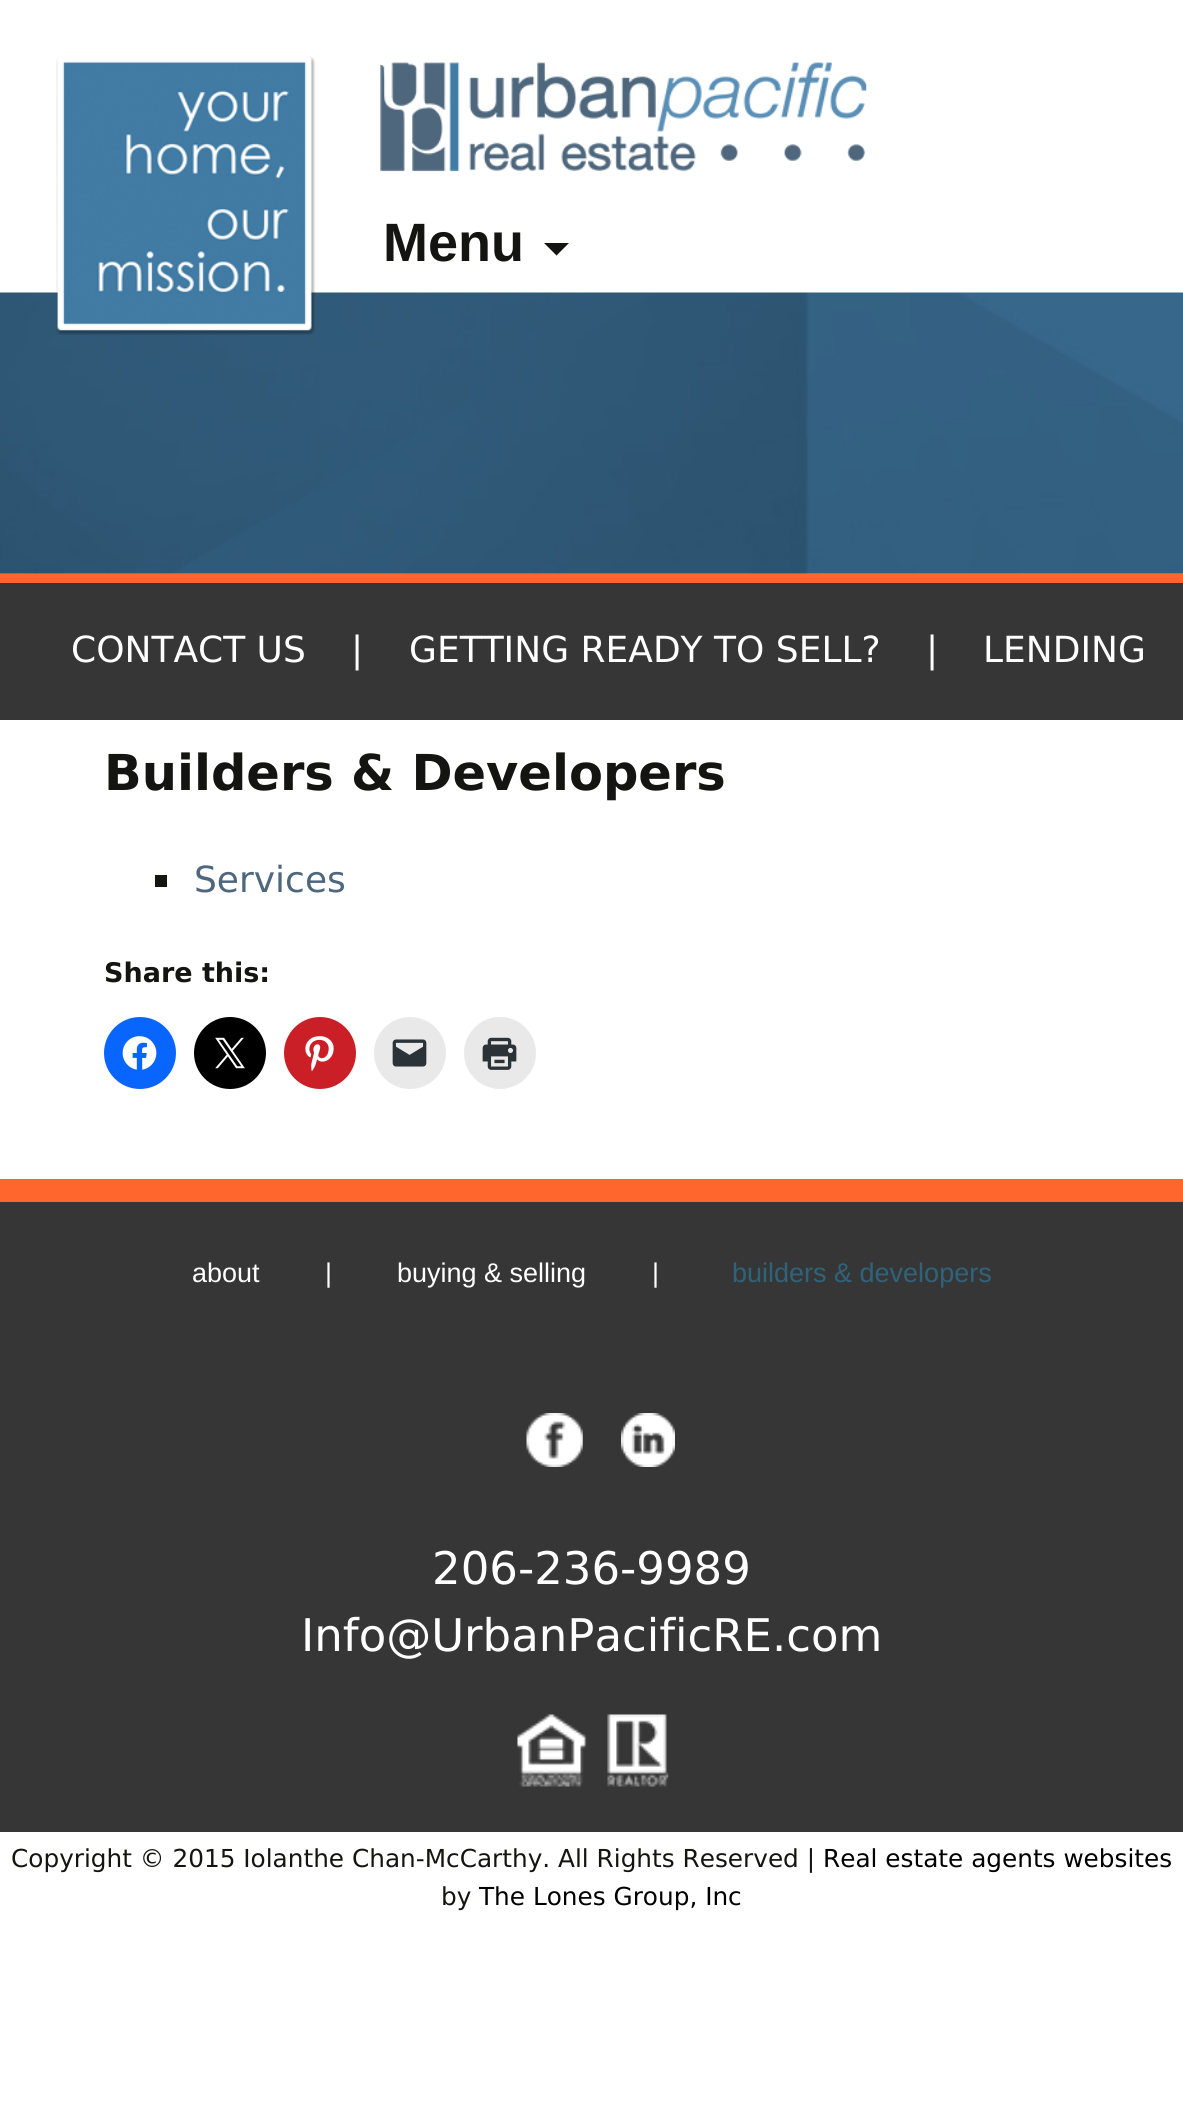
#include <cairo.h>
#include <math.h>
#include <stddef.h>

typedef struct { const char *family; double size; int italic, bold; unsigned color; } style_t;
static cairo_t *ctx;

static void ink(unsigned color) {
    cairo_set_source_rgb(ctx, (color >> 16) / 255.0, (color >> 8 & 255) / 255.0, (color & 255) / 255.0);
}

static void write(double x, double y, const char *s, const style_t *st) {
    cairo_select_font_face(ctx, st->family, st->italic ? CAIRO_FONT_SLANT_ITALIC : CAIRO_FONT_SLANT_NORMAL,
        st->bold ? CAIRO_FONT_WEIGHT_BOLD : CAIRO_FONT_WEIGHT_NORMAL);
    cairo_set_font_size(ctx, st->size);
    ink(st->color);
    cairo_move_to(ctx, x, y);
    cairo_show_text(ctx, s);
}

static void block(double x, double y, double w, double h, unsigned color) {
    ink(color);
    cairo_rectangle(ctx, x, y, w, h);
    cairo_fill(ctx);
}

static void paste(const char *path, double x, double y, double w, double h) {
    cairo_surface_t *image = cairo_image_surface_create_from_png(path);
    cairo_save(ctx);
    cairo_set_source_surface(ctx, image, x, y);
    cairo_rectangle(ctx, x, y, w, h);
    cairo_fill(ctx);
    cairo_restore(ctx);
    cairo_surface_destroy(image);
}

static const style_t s1 = {"Liberation Sans", 54, 0, 1, 0x141412};
static const style_t s2 = {"DejaVu Sans", 36, 0, 0, 0xffffff};
static const style_t s3 = {"DejaVu Sans", 49.5, 0, 1, 0x141412};
static const style_t s4 = {"DejaVu Sans", 36, 0, 0, 0x4e677d};
static const style_t s5 = {"DejaVu Sans", 27, 0, 1, 0x141412};
static const style_t s6 = {"Liberation Sans", 27, 0, 0, 0xffffff};
static const style_t s7 = {"Liberation Sans", 27, 0, 0, 0x2f637a};
static const style_t s8 = {"DejaVu Sans", 45, 0, 0, 0xffffff};
static const style_t s9 = {"DejaVu Sans", 24.75, 0, 0, 0x141412};
static const style_t s10 = {"DejaVu Sans", 24.75, 0, 0, 0x000000};

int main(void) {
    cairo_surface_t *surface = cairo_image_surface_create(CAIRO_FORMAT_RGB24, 1183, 2124);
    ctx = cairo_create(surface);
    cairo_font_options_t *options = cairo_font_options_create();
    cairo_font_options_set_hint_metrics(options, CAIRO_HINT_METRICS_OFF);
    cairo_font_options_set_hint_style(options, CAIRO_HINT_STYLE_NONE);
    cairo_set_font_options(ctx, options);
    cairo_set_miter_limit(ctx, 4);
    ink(0xffffff);
    cairo_paint(ctx);
    paste("pic2.png", 0, 292, 1183, 282);
    paste("pic1.png", 56, 56, 811, 279);
    write(383, 261, "Menu", &s1);
    cairo_new_path(ctx);
    cairo_move_to(ctx, 544, 243);
    cairo_line_to(ctx, 569, 243);
    cairo_line_to(ctx, 556.5, 255.5);
    cairo_close_path(ctx);
    cairo_fill(ctx);
    block(0, 583, 1183, 137, 0x363636);
    block(0, 574, 1183, 9, 0xff662d);
    write(71, 662, "CONTACT US", &s2);
    write(351, 662, "|", &s2);
    write(409, 662, "GETTING READY TO SELL?", &s2);
    write(926, 662, "|", &s2);
    write(983, 662, "LENDING", &s2);
    write(104, 790, "Builders & Developers", &s3);
    block(155, 875, 12, 12, 0x141412);
    write(194, 892, "Services", &s4);
    write(104, 982, "Share this:", &s5);
    ink(0x0866ff);
    cairo_new_path(ctx);
    cairo_arc(ctx, 140, 1053, 36, 0, 2 * M_PI);
    cairo_fill(ctx);
    paste("pic3.png", 122, 1036, 35, 34);
    ink(0x000000);
    cairo_arc(ctx, 230, 1053, 36, 0, 2 * M_PI);
    cairo_fill(ctx);
    paste("pic4.png", 215, 1037, 30, 32);
    ink(0xca1f27);
    cairo_arc(ctx, 320, 1053, 36, 0, 2 * M_PI);
    cairo_fill(ctx);
    paste("pic5.png", 305, 1036, 29, 36);
    ink(0xe9e9e9);
    cairo_arc(ctx, 410, 1053, 36, 0, 2 * M_PI);
    cairo_fill(ctx);
    paste("pic6.png", 392, 1039, 35, 28);
    cairo_arc(ctx, 500, 1053, 36, 0, 2 * M_PI);
    cairo_fill(ctx);
    paste("pic7.png", 482, 1037, 35, 33);
    block(0, 1202, 1183, 630, 0x363636);
    block(0, 1179, 1183, 23, 0xff662d);
    write(192, 1282, "about", &s6);
    write(325, 1282, "|", &s6);
    write(397, 1282, "buying & selling", &s6);
    write(652, 1282, "|", &s6);
    write(732, 1282, "builders & developers", &s7);
    paste("pic8.png", 526, 1413, 57, 54);
    paste("pic9.png", 621, 1413, 54, 54);
    write(432, 1584, "206-236-9989", &s8);
    write(301, 1651, "Info@UrbanPacificRE.com", &s8);
    paste("pic10.png", 517, 1714, 152, 73);
    write(11, 1867, "Copyright © 2015 Iolanthe Chan-McCarthy. All Rights Reserved |", &s9);
    write(823, 1867, "Real estate agents websites", &s10);
    write(441, 1905, "by", &s9);
    write(479, 1905, "The Lones Group, Inc", &s10);
    cairo_surface_write_to_png(surface, "screenshot.png");
    cairo_font_options_destroy(options);
    cairo_destroy(ctx);
    cairo_surface_destroy(surface);
    return 0;
}
